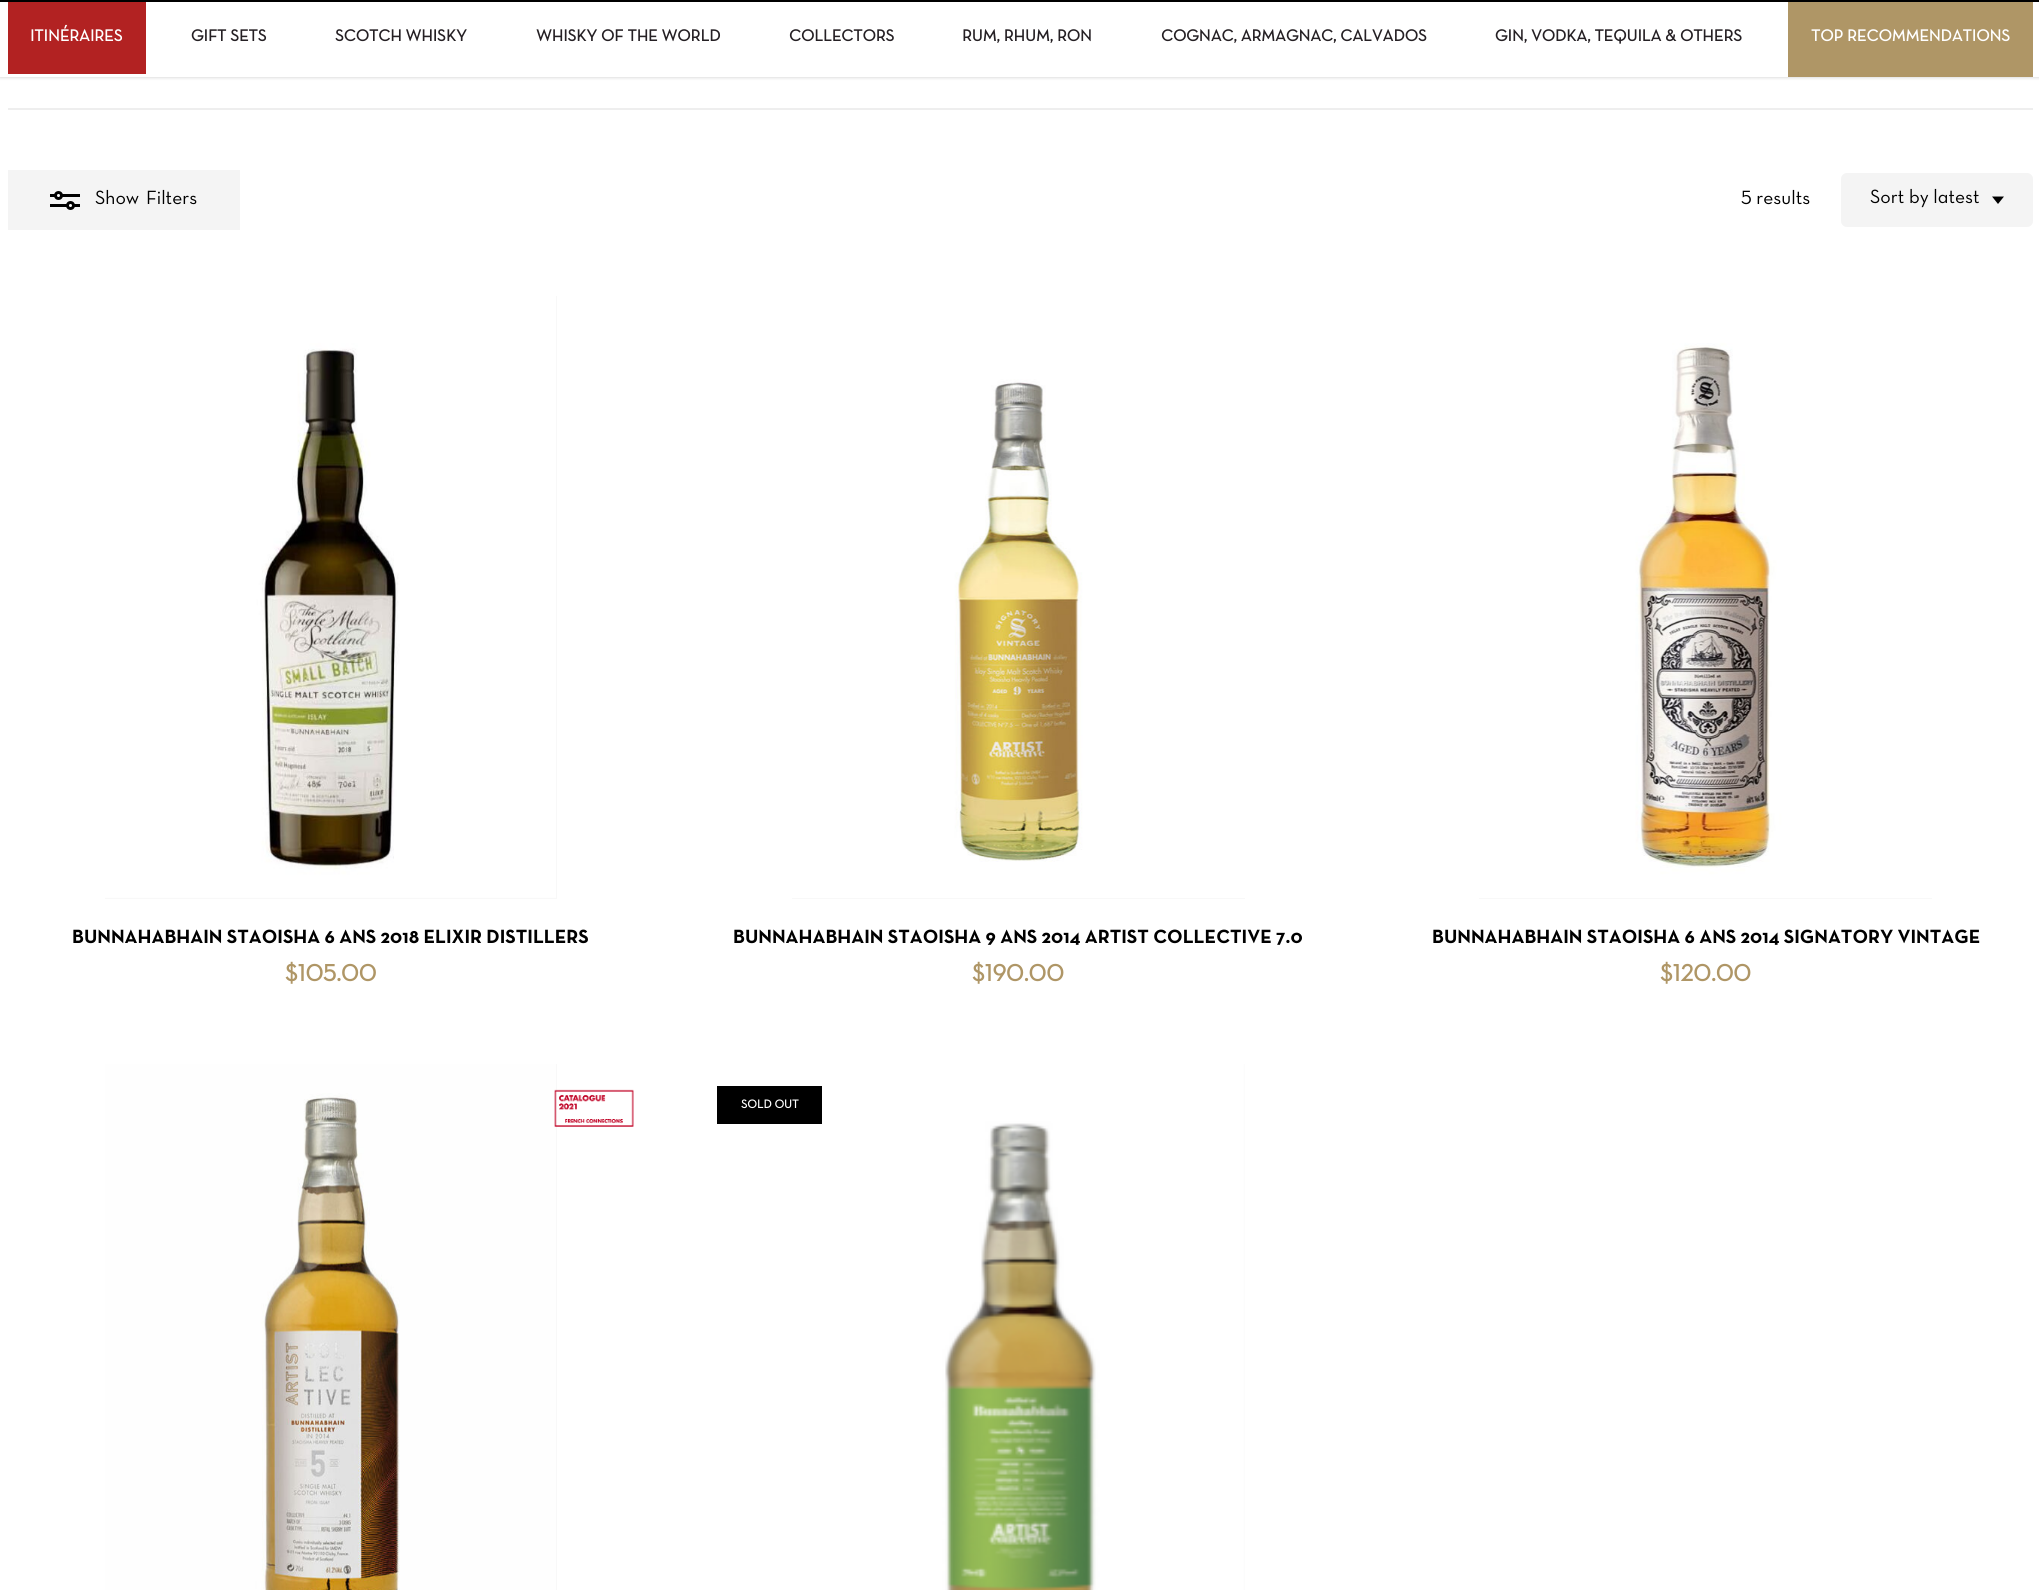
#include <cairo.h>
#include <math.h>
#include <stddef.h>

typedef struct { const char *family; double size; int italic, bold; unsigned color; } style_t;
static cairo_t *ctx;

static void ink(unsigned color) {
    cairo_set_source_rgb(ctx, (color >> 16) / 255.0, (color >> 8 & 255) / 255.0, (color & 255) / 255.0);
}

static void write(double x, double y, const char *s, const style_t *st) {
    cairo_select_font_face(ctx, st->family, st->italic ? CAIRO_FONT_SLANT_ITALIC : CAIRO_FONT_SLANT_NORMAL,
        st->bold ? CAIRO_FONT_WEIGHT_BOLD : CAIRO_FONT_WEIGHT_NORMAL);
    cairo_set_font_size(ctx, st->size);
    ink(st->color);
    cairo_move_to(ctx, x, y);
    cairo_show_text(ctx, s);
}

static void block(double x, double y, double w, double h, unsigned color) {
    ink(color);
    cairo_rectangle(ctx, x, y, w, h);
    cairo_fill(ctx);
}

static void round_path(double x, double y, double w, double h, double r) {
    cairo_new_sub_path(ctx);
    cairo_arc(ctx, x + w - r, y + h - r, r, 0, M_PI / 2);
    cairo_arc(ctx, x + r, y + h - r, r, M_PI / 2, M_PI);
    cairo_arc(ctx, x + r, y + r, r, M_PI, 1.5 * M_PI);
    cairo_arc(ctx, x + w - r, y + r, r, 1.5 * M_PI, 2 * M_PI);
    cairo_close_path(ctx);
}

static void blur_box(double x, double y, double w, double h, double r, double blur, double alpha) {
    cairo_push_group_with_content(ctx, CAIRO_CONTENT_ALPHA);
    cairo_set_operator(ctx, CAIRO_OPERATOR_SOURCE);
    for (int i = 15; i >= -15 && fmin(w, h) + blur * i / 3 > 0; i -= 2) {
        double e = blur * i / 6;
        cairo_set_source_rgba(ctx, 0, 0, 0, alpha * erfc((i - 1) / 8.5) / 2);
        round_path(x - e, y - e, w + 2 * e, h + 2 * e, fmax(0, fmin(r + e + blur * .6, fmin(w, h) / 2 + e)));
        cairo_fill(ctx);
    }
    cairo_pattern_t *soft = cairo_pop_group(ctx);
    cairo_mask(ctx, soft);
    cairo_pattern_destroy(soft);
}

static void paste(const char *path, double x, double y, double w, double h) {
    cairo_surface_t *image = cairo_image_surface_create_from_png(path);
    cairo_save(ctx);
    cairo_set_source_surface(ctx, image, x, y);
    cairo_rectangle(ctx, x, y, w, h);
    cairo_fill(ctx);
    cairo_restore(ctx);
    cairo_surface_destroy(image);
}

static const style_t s1 = {"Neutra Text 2", 16.5, 0, 1, 0xffffff};
static const style_t s2 = {"Neutra Text 2", 16.5, 0, 1, 0x252024};
static const style_t s3 = {"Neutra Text", 19.5, 0, 0, 0x000000};
static const style_t s4 = {"Neutra Text", 19.5, 0, 1, 0x000000};
static const style_t s5 = {"Neutra Text 2", 24, 0, 1, 0xaf9666};
static const style_t s6 = {"Neutra Text 2", 12, 0, 1, 0xffffff};

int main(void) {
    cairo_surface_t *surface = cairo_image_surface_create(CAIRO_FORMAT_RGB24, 2039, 1590);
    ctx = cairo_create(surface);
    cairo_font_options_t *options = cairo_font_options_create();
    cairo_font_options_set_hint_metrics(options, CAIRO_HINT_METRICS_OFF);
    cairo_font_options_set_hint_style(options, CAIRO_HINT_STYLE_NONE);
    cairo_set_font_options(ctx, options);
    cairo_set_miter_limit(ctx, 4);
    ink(0xffffff);
    cairo_paint(ctx);
    ink(0x000000);
    blur_box(0, 0, 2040, 77, 0, 2, 0.22);
    block(0, 2, 2039, 75, 0xffffff);
    block(0, 0, 2039, 2, 0x000000);
    block(8, 2, 138, 72, 0xb22222);
    write(30, 41, "ITINÉRAIRES", &s1);
    write(191, 41, "GIFT SETS", &s2);
    write(335, 41, "SCOTCH WHISKY", &s2);
    write(536, 41, "WHISKY OF THE WORLD", &s2);
    write(789, 41, "COLLECTORS", &s2);
    write(962, 41, "RUM, RHUM, RON", &s2);
    write(1161, 41, "COGNAC, ARMAGNAC, CALVADOS", &s2);
    write(1495, 41, "GIN, VODKA, TEQUILA & OTHERS", &s2);
    block(1788, 2, 245, 75, 0xaf9666);
    write(1811, 41, "TOP RECOMMENDATIONS", &s1);
    block(8, 108, 2025, 2, 0xeeeeee);
    block(8, 170, 232, 60, 0xf4f4f4);
    block(50, 194, 30, 3, 0x000000);
    block(50, 204, 30, 3, 0x000000);
    ink(0xffffff);
    cairo_new_path(ctx);
    cairo_arc(ctx, 58.5, 195.5, 3, 0, 2 * M_PI);
    cairo_fill_preserve(ctx);
    ink(0x000000);
    cairo_set_line_width(ctx, 3);
    cairo_stroke(ctx);
    ink(0xffffff);
    cairo_arc(ctx, 70.5, 205.5, 3, 0, 2 * M_PI);
    cairo_fill_preserve(ctx);
    ink(0x000000);
    cairo_stroke(ctx);
    write(95, 204, "Show", &s3);
    write(146, 204, "Filters", &s3);
    write(1741, 204, "5 results", &s3);
    ink(0xf4f4f4);
    round_path(1841, 173, 192, 54, 6);
    cairo_fill(ctx);
    write(1870, 203, "Sort by latest", &s3);
    cairo_new_path(ctx);
    cairo_move_to(ctx, 1992, 196.5);
    cairo_line_to(ctx, 2004, 196.5);
    cairo_line_to(ctx, 1998, 204);
    cairo_close_path(ctx);
    cairo_fill(ctx);
    block(105, 296, 452, 603, 0xf8f8f8);
    paste("pic1.png", 105, 295, 451, 603);
    write(72, 943, "BUNNAHABHAIN STAOISHA 6 ANS 2018 ELIXIR DISTILLERS", &s4);
    write(285, 981, "$105.00", &s5);
    block(792, 898, 453, 1, 0xf8f8f8);
    paste("pic2.png", 792, 295, 453, 603);
    write(733, 943, "BUNNAHABHAIN STAOISHA 9 ANS 2014 ARTIST COLLECTIVE 7.0", &s4);
    write(972, 981, "$190.00", &s5);
    block(1479, 898, 453, 1, 0xf8f8f8);
    paste("pic3.png", 1479, 295, 453, 603);
    write(1432, 943, "BUNNAHABHAIN STAOISHA 6 ANS 2014 SIGNATORY VINTAGE", &s4);
    write(1660, 981, "$120.00", &s5);
    block(556, 1064, 1, 526, 0xf8f8f8);
    paste("pic4.png", 105, 1064, 451, 526);
    paste("pic5.png", 554, 1089, 80, 38);
    block(1243, 1064, 2, 526, 0xf8f8f8);
    paste("pic6.png", 792, 1063, 453, 527);
    block(717, 1086, 105, 38, 0x000000);
    write(741, 1108, "SOLD OUT", &s6);
    cairo_surface_write_to_png(surface, "screenshot.png");
    cairo_font_options_destroy(options);
    cairo_destroy(ctx);
    cairo_surface_destroy(surface);
    return 0;
}
